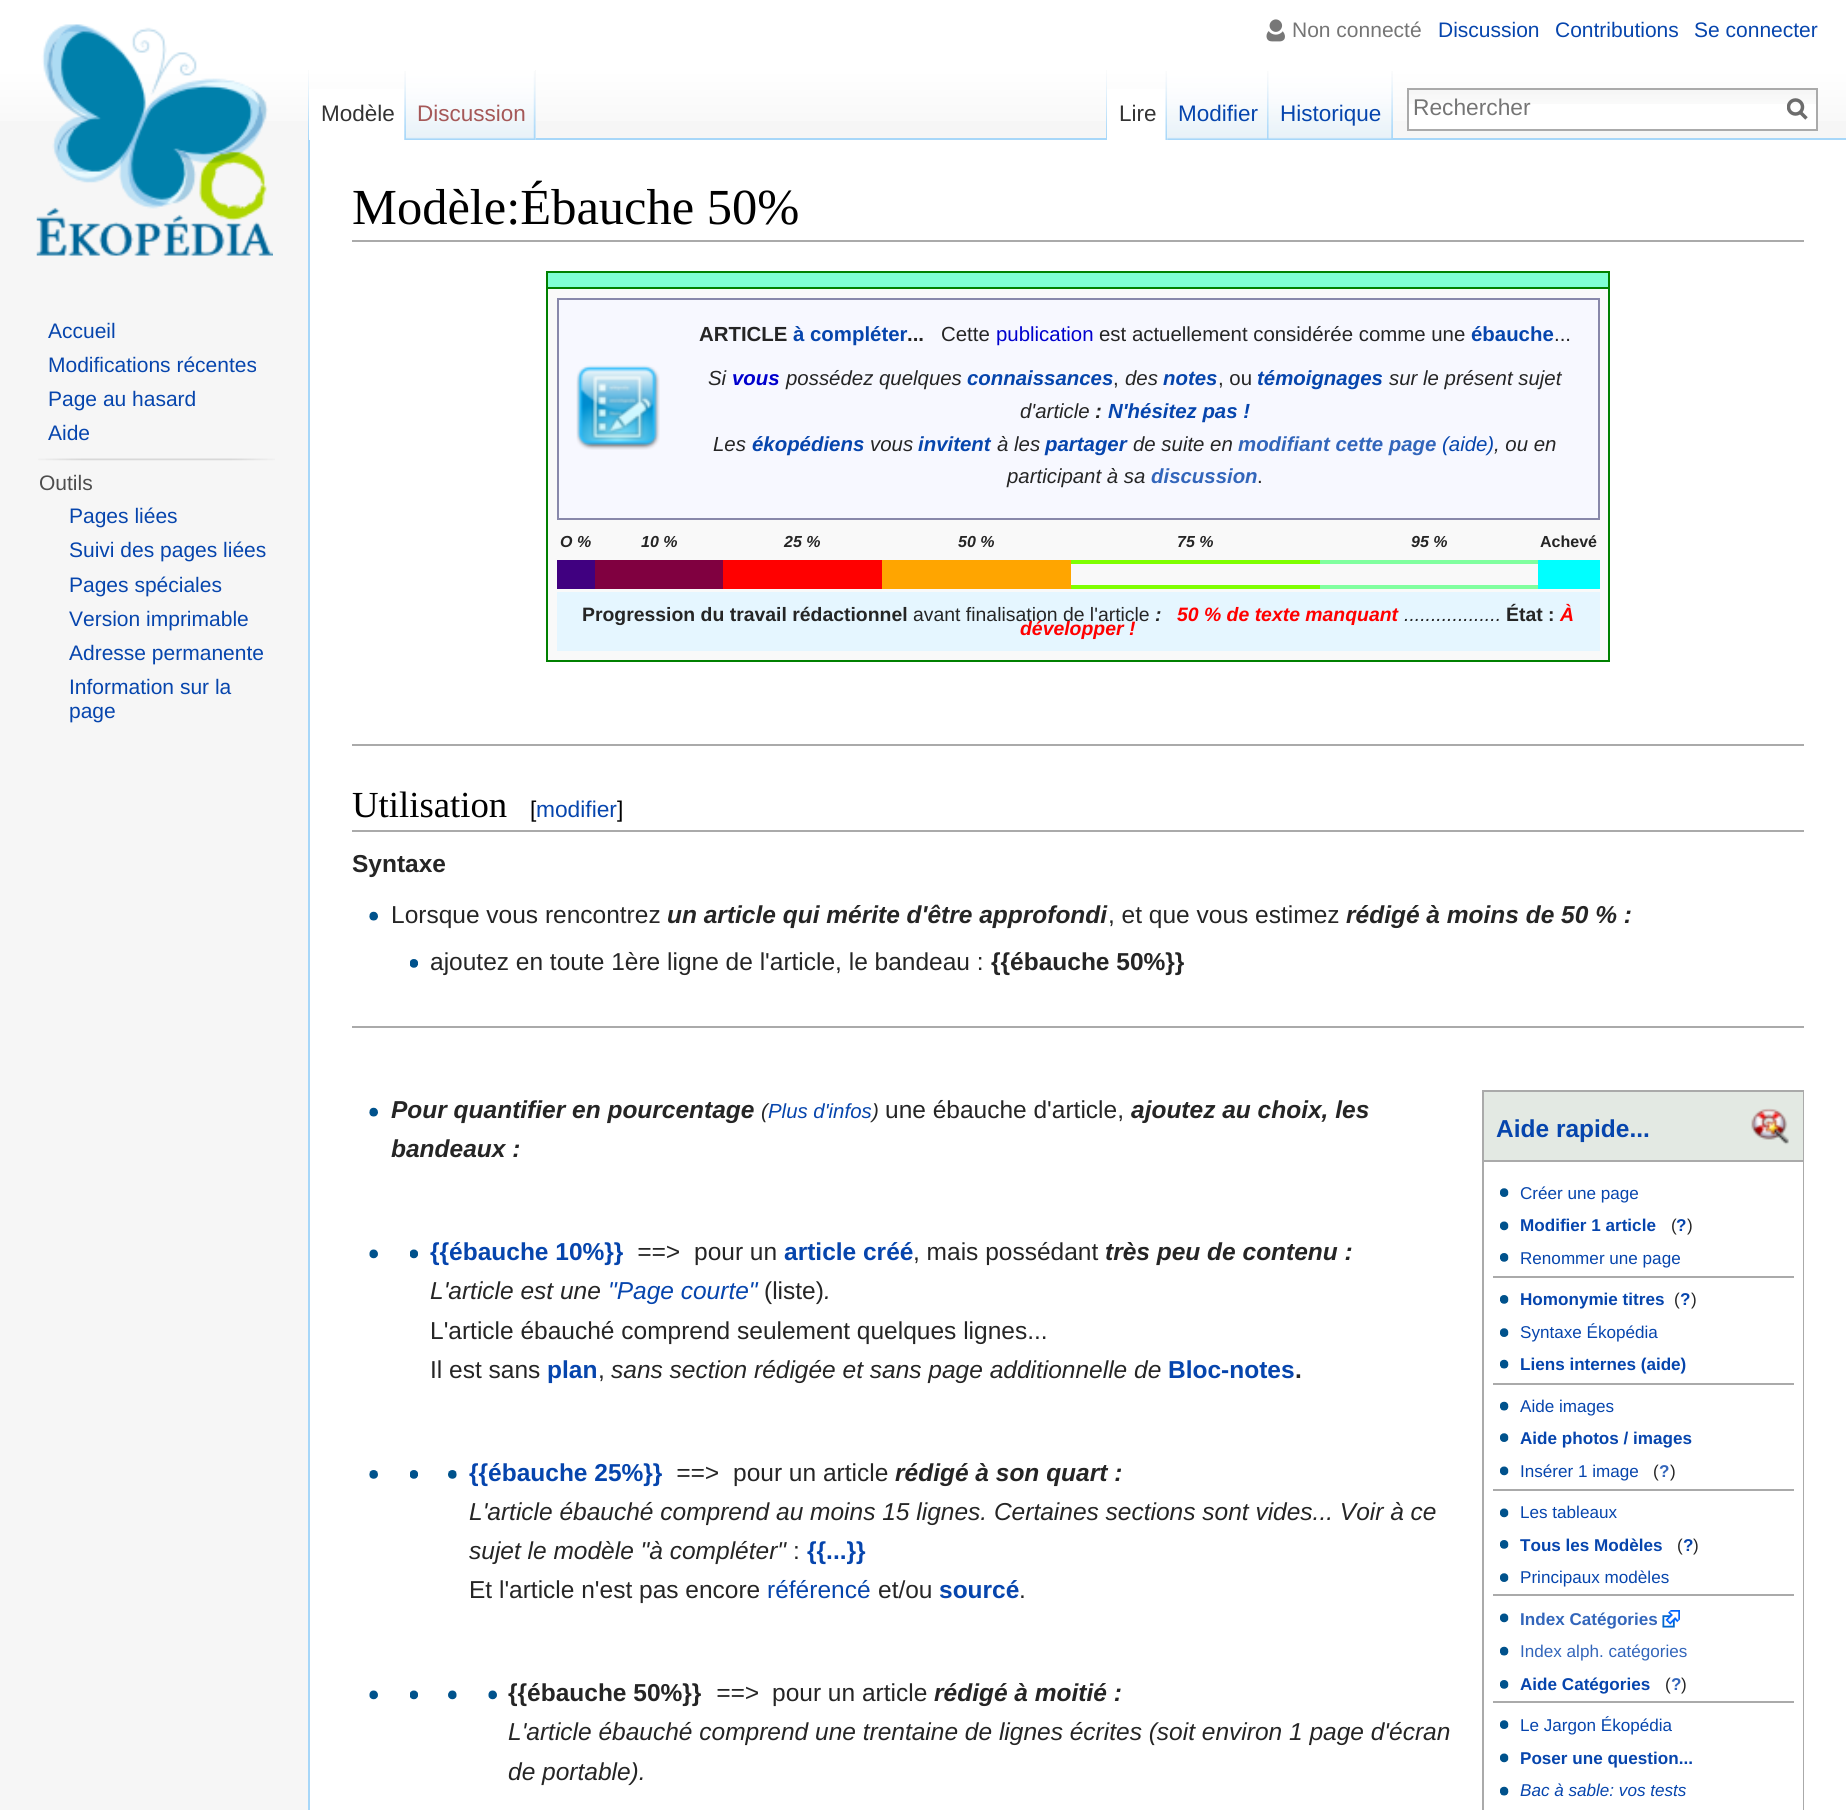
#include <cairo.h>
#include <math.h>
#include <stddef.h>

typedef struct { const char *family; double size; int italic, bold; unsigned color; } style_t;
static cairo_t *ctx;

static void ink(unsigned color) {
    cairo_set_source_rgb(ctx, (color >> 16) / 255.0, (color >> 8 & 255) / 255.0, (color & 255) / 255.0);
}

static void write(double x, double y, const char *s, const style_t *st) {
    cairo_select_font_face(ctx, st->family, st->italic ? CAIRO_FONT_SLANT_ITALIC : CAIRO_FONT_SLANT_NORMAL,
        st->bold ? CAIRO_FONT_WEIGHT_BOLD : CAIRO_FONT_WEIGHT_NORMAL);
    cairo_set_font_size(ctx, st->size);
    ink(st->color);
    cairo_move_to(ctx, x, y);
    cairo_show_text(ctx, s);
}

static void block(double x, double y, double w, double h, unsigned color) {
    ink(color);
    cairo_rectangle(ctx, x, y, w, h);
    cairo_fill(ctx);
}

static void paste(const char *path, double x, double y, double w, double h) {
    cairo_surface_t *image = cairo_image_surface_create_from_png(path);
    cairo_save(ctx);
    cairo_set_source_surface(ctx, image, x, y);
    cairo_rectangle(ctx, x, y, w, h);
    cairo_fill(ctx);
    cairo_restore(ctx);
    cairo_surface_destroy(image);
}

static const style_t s1 = {"Liberation Sans", 21, 0, 0, 0x757575};
static const style_t s2 = {"Liberation Sans", 21, 0, 0, 0x0645ad};
static const style_t s3 = {"Liberation Sans", 22.5, 0, 0, 0x333333};
static const style_t s4 = {"Liberation Sans", 22.5, 0, 0, 0xa55858};
static const style_t s5 = {"Liberation Sans", 22.5, 0, 0, 0x0645ad};
static const style_t s6 = {"Liberation Sans", 22.75, 0, 0, 0x757575};
static const style_t s7 = {"Liberation Sans", 21, 0, 0, 0x4d4d4d};
static const style_t s8 = {"Liberation Serif", 50.5, 0, 0, 0x000000};
static const style_t s9 = {"Liberation Sans", 20.4, 0, 1, 0x252525};
static const style_t s10 = {"Liberation Sans", 20.4, 0, 1, 0x0645ad};
static const style_t s11 = {"Liberation Sans", 20.4, 0, 0, 0x252525};
static const style_t s12 = {"Liberation Sans", 20.4, 0, 0, 0x0000cd};
static const style_t s13 = {"Liberation Sans", 20.4, 1, 0, 0x252525};
static const style_t s14 = {"Liberation Sans", 20.4, 1, 1, 0x0000cd};
static const style_t s15 = {"Liberation Sans", 20.4, 1, 1, 0x0645ad};
static const style_t s16 = {"Liberation Sans", 20.4, 1, 1, 0x252525};
static const style_t s17 = {"Liberation Sans", 20.4, 1, 1, 0x3366bb};
static const style_t s18 = {"Liberation Sans", 20.4, 1, 0, 0x0645ad};
static const style_t s19 = {"Liberation Sans", 16, 1, 1, 0x252525};
static const style_t s20 = {"Liberation Sans", 16, 0, 1, 0x252525};
static const style_t s21 = {"Liberation Sans", 19.4, 0, 1, 0x252525};
static const style_t s22 = {"Liberation Sans", 19.4, 0, 0, 0x252525};
static const style_t s23 = {"Liberation Sans", 19.4, 1, 1, 0x252525};
static const style_t s24 = {"Liberation Sans", 19.4, 1, 1, 0xff0000};
static const style_t s25 = {"Liberation Sans", 19.4, 1, 0, 0x252525};
static const style_t s26 = {"Liberation Serif", 36.75, 0, 0, 0x000000};
static const style_t s27 = {"Liberation Sans", 22.75, 0, 0, 0x000000};
static const style_t s28 = {"Liberation Sans", 22.75, 0, 0, 0x0645ad};
static const style_t s29 = {"Liberation Sans", 24.5, 0, 1, 0x252525};
static const style_t s30 = {"Liberation Sans", 24.5, 0, 0, 0x252525};
static const style_t s31 = {"Liberation Sans", 24.5, 1, 1, 0x252525};
static const style_t s32 = {"Liberation Sans", 24.5, 0, 1, 0x0645ad};
static const style_t s33 = {"Liberation Sans", 17.1, 0, 0, 0x0645ad};
static const style_t s34 = {"Liberation Sans", 17.1, 0, 1, 0x0645ad};
static const style_t s35 = {"Liberation Sans", 17.1, 0, 0, 0x252525};
static const style_t s36 = {"Liberation Sans", 17.1, 0, 1, 0x3366bb};
static const style_t s37 = {"Liberation Sans", 17.1, 0, 0, 0x3366bb};
static const style_t s38 = {"Liberation Sans", 17.1, 1, 0, 0x0645ad};
static const style_t s39 = {"Liberation Sans", 24.5, 1, 0, 0x252525};
static const style_t s40 = {"Liberation Sans", 24.5, 1, 0, 0x0645ad};
static const style_t s41 = {"Liberation Sans", 24.5, 0, 0, 0x0645ad};

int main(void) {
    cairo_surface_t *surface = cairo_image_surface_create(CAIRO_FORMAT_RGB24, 1846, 1810);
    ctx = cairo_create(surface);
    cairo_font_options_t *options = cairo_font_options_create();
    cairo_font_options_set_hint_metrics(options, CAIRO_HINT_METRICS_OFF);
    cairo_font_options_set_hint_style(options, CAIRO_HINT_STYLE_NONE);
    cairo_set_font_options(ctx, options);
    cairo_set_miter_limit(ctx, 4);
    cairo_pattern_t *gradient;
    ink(0xf6f6f6);
    cairo_paint(ctx);
    gradient = cairo_pattern_create_linear(923, 0, 923, 140);
    cairo_pattern_add_color_stop_rgba(gradient, 0.5, 1, 1, 1, 1);
    cairo_pattern_add_color_stop_rgba(gradient, 1, 0.965, 0.965, 0.965, 1);
    cairo_set_source(ctx, gradient);
    cairo_pattern_destroy(gradient);
    cairo_rectangle(ctx, 0, 0, 1846, 121);
    cairo_fill(ctx);
    paste("pic1.png", 1266, 19, 19, 23);
    write(1292, 37, "Non connecté", &s1);
    write(1438, 37, "Discussion", &s2);
    write(1555, 37, "Contributions", &s2);
    write(1694, 37, "Se connecter", &s2);
    paste("pic2.png", 308, 70, 1, 68);
    block(308, 138, 2, 1672, 0xa7d7f9);
    block(309, 89, 97, 51, 0xffffff);
    paste("pic3.png", 404, 71, 2, 69);
    write(321, 121, "Modèle", &s3);
    block(535, 70, 1, 70, 0xf3f3f3);
    paste("pic4.png", 406, 70, 130, 70);
    paste("pic5.png", 533, 71, 3, 69);
    write(417, 121, "Discussion", &s4);
    paste("pic2.png", 1106, 70, 1, 68);
    block(536, 138, 1310, 2, 0xa7d7f9);
    block(1107, 89, 61, 51, 0xffffff);
    paste("pic6.png", 1165, 71, 3, 69);
    write(1119, 121, "Lire", &s3);
    paste("pic7.png", 1167, 70, 102, 70);
    paste("pic8.png", 1267, 71, 2, 69);
    write(1178, 121, "Modifier", &s5);
    paste("pic9.png", 1268, 70, 125, 70);
    paste("pic10.png", 1391, 71, 2, 68);
    write(1280, 121, "Historique", &s5);
    block(1409, 104, 407, 25, 0xffffff);
    paste("pic11.png", 1409, 90, 407, 14);
    cairo_rectangle(ctx, 1408, 89, 409, 41);
    ink(0xaaaaaa);
    cairo_stroke(ctx);
    write(1413, 115, "Rechercher", &s6);
    cairo_new_path(ctx);
    cairo_move_to(ctx, 1806.5, 118.5);
    cairo_line_to(ctx, 1799.5, 111.5);
    ink(0x6c6c6c);
    cairo_set_line_width(ctx, 3.5);
    cairo_stroke(ctx);
    cairo_save(ctx);
    cairo_rectangle(ctx, 1787, 98, 21, 23);
    cairo_clip(ctx);
    cairo_arc(ctx, 1795.5, 107, 7, 0, 2 * M_PI);
    cairo_stroke(ctx);
    cairo_restore(ctx);
    paste("pic12.png", 36, 24, 237, 232);
    write(48, 338, "Accueil", &s2);
    write(48, 372, "Modifications récentes", &s2);
    write(48, 406, "Page au hasard", &s2);
    write(48, 440, "Aide", &s2);
    paste("pic13.png", 38, 458, 237, 3);
    write(39, 490, "Outils", &s7);
    write(69, 523, "Pages liées", &s2);
    write(69, 557, "Suivi des pages liées", &s2);
    write(69, 592, "Pages spéciales", &s2);
    write(69, 626, "Version imprimable", &s2);
    write(69, 660, "Adresse permanente", &s2);
    write(69, 694, "Information sur la", &s2);
    write(69, 718, "page", &s2);
    block(310, 140, 1536, 1670, 0xffffff);
    block(352, 240, 1452, 2, 0xaaaaaa);
    write(352, 224, "Modèle:Ébauche 50%", &s8);
    block(548, 289, 1060, 371, 0xf9f9f9);
    cairo_rectangle(ctx, 547, 272, 1062, 389);
    ink(0x008000);
    cairo_set_line_width(ctx, 2);
    cairo_stroke(ctx);
    block(548, 273, 1060, 14, 0x7fffd4);
    block(548, 287, 1060, 2, 0x008000);
    ink(0xf7f8ff);
    cairo_rectangle(ctx, 558, 299, 1041, 220);
    cairo_fill_preserve(ctx);
    ink(0x8888aa);
    cairo_stroke(ctx);
    paste("pic14.png", 576, 365, 84, 85);
    write(699, 341, "ARTICLE", &s9);
    write(793, 341, "à compléter", &s10);
    write(907, 341, "...", &s9);
    write(941, 341, "Cette", &s11);
    write(996, 341, "publication", &s12);
    write(1099, 341, "est actuellement considérée comme une", &s11);
    write(1471, 341, "ébauche", &s10);
    write(1554, 341, "...", &s11);
    write(708, 385, "Si", &s13);
    write(732, 385, "vous", &s14);
    write(786, 385, "possédez quelques", &s13);
    write(967, 385, "connaissances", &s15);
    write(1113, 385, ",", &s11);
    write(1125, 385, "des", &s13);
    write(1163, 385, "notes", &s15);
    write(1218, 385, ", ou", &s11);
    write(1257, 385, "témoignages", &s15);
    write(1389, 385, "sur le présent sujet", &s13);
    write(1020, 418, "d'article", &s13);
    write(1095, 418, ":", &s16);
    write(1108, 418, "N'hésitez pas !", &s15);
    write(713, 451, "Les", &s13);
    write(752, 451, "ékopédiens", &s15);
    write(870, 451, "vous", &s13);
    write(918, 451, "invitent", &s15);
    write(997, 451, "à les", &s13);
    write(1045, 451, "partager", &s15);
    write(1133, 451, "de suite en", &s13);
    write(1238, 451, "modifiant cette page", &s17);
    write(1442, 451, "(aide)", &s18);
    write(1494, 451, ", ou en", &s13);
    write(1007, 483, "participant à sa", &s13);
    write(1151, 483, "discussion", &s17);
    write(1257, 483, ".", &s11);
    write(560, 547, "O %", &s19);
    write(641, 547, "10 %", &s19);
    write(784, 547, "25 %", &s19);
    write(958, 547, "50 %", &s19);
    write(1177, 547, "75 %", &s19);
    write(1411, 547, "95 %", &s19);
    write(1540, 547, "Achevé", &s20);
    block(557, 560, 38, 29, 0x400080);
    block(595, 560, 128, 29, 0x800040);
    block(723, 560, 159, 29, 0xff0000);
    block(882, 560, 189, 29, 0xffa500);
    block(1071, 560, 249, 4, 0x7fff00);
    block(1320, 560, 218, 4, 0x80ff9f);
    block(1538, 560, 62, 29, 0x00ffff);
    block(1071, 585, 249, 4, 0x7fff00);
    block(1320, 585, 218, 4, 0x80ff9f);
    block(557, 592, 1043, 59, 0xe5f6ff);
    write(582, 621, "Progression du travail rédactionnel", &s21);
    write(913, 621, "avant finalisation de l'article", &s22);
    write(1155, 621, ":", &s23);
    write(1177, 621, "50 % de texte manquant", &s24);
    write(1404, 621, "..................", &s25);
    write(1506, 621, "État :", &s21);
    write(1560, 621, "À", &s24);
    write(1020, 635, "développer !", &s24);
    block(352, 744, 1452, 2, 0xaaaaaa);
    block(352, 830, 1452, 2, 0xaaaaaa);
    write(352, 817, "Utilisation", &s26);
    write(530, 817, "[", &s27);
    write(536, 817, "modifier", &s28);
    write(617, 817, "]", &s27);
    write(352, 872, "Syntaxe", &s29);
    paste("pic15.png", 369, 911, 9, 10);
    write(391, 923, "Lorsque vous rencontrez", &s30);
    write(667, 923, "un article qui mérite d'être approfondi", &s31);
    write(1108, 923, ", et que vous estimez", &s30);
    write(1346, 923, "rédigé à moins de 50 % :", &s31);
    paste("pic16.png", 410, 959, 8, 9);
    write(430, 970, "ajoutez en toute 1ère ligne de l'article, le bandeau :", &s30);
    write(991, 970, "{{ébauche 50%}}", &s29);
    block(352, 1026, 1452, 2, 0xaaaaaa);
    paste("pic15.png", 369, 1107, 9, 10);
    write(391, 1118, "Pour quantifier en pourcentage", &s31);
    write(761, 1118, "(", &s13);
    write(768, 1118, "Plus d'infos", &s18);
    write(872, 1118, ")", &s13);
    write(885, 1118, "une ébauche d'article,", &s30);
    write(1131, 1118, "ajoutez au choix, les", &s31);
    write(391, 1157, "bandeaux :", &s31);
    cairo_rectangle(ctx, 1483, 1091, 320, 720);
    ink(0xaaaaaa);
    cairo_stroke(ctx);
    block(1484, 1092, 319, 68, 0xe3e9e3);
    block(1484, 1160, 319, 2, 0xaaaaaa);
    write(1496, 1137, "Aide rapide...", &s32);
    paste("pic17.png", 1751, 1108, 38, 37);
    block(1802, 1162, 1, 648, 0xffffff);
    paste("pic18.png", 1500, 1188, 9, 9);
    write(1520, 1199, "Créer une page", &s33);
    paste("pic19.png", 1500, 1221, 9, 10);
    write(1520, 1231, "Modifier 1 article", &s34);
    write(1671, 1231, "(", &s35);
    write(1676, 1231, "?", &s34);
    write(1687, 1231, ")", &s35);
    paste("pic20.png", 1500, 1253, 9, 9);
    write(1520, 1264, "Renommer une page", &s33);
    block(1493, 1276, 301, 2, 0xaaaaaa);
    paste("pic20.png", 1500, 1295, 9, 9);
    write(1520, 1305, "Homonymie titres", &s34);
    write(1674, 1305, "(", &s35);
    write(1680, 1305, "?", &s34);
    write(1691, 1305, ")", &s35);
    paste("pic18.png", 1500, 1328, 9, 9);
    write(1520, 1338, "Syntaxe Ékopédia", &s33);
    paste("pic21.png", 1500, 1359, 9, 10);
    write(1520, 1370, "Liens internes (aide)", &s34);
    block(1493, 1383, 301, 2, 0xaaaaaa);
    paste("pic21.png", 1500, 1401, 9, 10);
    write(1520, 1412, "Aide images", &s33);
    paste("pic18.png", 1500, 1433, 9, 9);
    write(1520, 1444, "Aide photos / images", &s34);
    paste("pic19.png", 1500, 1466, 9, 10);
    write(1520, 1477, "Insérer 1 image", &s33);
    write(1653, 1477, "(", &s35);
    write(1659, 1477, "?", &s36);
    write(1670, 1477, ")", &s35);
    block(1493, 1489, 301, 2, 0xaaaaaa);
    paste("pic19.png", 1500, 1508, 9, 10);
    write(1520, 1518, "Les tableaux", &s33);
    paste("pic20.png", 1500, 1540, 9, 9);
    write(1520, 1551, "Tous les Modèles", &s34);
    write(1677, 1551, "(", &s35);
    write(1683, 1551, "?", &s34);
    write(1693, 1551, ")", &s35);
    paste("pic18.png", 1500, 1573, 9, 9);
    write(1520, 1583, "Principaux modèles", &s33);
    block(1493, 1594, 301, 2, 0xaaaaaa);
    paste("pic19.png", 1500, 1613, 9, 10);
    write(1520, 1625, "Index Catégories", &s36);
    paste("pic22.png", 1662, 1610, 18, 18);
    paste("pic21.png", 1500, 1646, 9, 10);
    write(1520, 1657, "Index alph. catégories", &s37);
    paste("pic20.png", 1500, 1680, 9, 9);
    write(1520, 1690, "Aide Catégories", &s34);
    write(1665, 1690, "(", &s35);
    write(1671, 1690, "?", &s36);
    write(1681, 1690, ")", &s35);
    block(1493, 1701, 301, 2, 0xaaaaaa);
    paste("pic18.png", 1500, 1720, 9, 9);
    write(1520, 1731, "Le Jargon Ékopédia", &s33);
    paste("pic19.png", 1500, 1753, 9, 10);
    write(1520, 1764, "Poser une question...", &s34);
    paste("pic21.png", 1500, 1786, 9, 10);
    write(1520, 1796, "Bac à sable: vos tests", &s38);
    paste("pic23.png", 369, 1249, 9, 10);
    paste("pic24.png", 410, 1249, 8, 10);
    write(430, 1260, "{{ébauche 10%}}", &s32);
    write(637, 1260, "==>", &s39);
    write(694, 1260, "pour un", &s30);
    write(784, 1260, "article créé", &s32);
    write(913, 1260, ", mais possédant", &s30);
    write(1105, 1260, "très peu de contenu :", &s31);
    write(430, 1299, "L'article est une", &s39);
    write(608, 1299, "\"Page courte\"", &s40);
    write(764, 1299, "(liste)", &s30);
    write(824, 1299, ".", &s39);
    write(430, 1339, "L'article ébauché comprend seulement quelques lignes...", &s30);
    write(430, 1378, "Il est sans", &s30);
    write(547, 1378, "plan", &s32);
    write(598, 1378, ",", &s30);
    write(611, 1378, "sans section rédigée et sans page additionnelle de", &s39);
    write(1168, 1378, "Bloc-notes", &s32);
    write(1295, 1378, ".", &s29);
    paste("pic25.png", 369, 1470, 9, 9);
    paste("pic16.png", 410, 1470, 8, 9);
    paste("pic26.png", 448, 1470, 9, 9);
    write(469, 1481, "{{ébauche 25%}}", &s32);
    write(676, 1481, "==>", &s39);
    write(733, 1481, "pour un article", &s30);
    write(895, 1481, "rédigé à son quart :", &s31);
    write(469, 1520, "L'article ébauché comprend au moins 15 lignes. Certaines sections sont vides... Voir à ce", &s39);
    write(469, 1559, "sujet le modèle \"à compléter\"", &s39);
    write(793, 1559, ":", &s30);
    write(807, 1559, "{{...}}", &s32);
    write(469, 1598, "Et l'article n'est pas encore", &s30);
    write(767, 1598, "référencé", &s41);
    write(878, 1598, "et/ou", &s30);
    write(939, 1598, "sourcé", &s32);
    write(1019, 1598, ".", &s30);
    paste("pic23.png", 369, 1690, 9, 10);
    paste("pic24.png", 410, 1690, 8, 10);
    paste("pic27.png", 448, 1690, 9, 10);
    paste("pic23.png", 488, 1690, 9, 10);
    write(508, 1701, "{{ébauche 50%}}", &s29);
    write(716, 1701, "==>", &s39);
    write(772, 1701, "pour un article", &s30);
    write(934, 1701, "rédigé à moitié :", &s31);
    write(508, 1740, "L'article ébauché comprend une trentaine de lignes écrites (soit environ 1 page d'écran", &s39);
    write(508, 1780, "de portable).", &s39);
    cairo_surface_write_to_png(surface, "screenshot.png");
    cairo_font_options_destroy(options);
    cairo_destroy(ctx);
    cairo_surface_destroy(surface);
    return 0;
}
